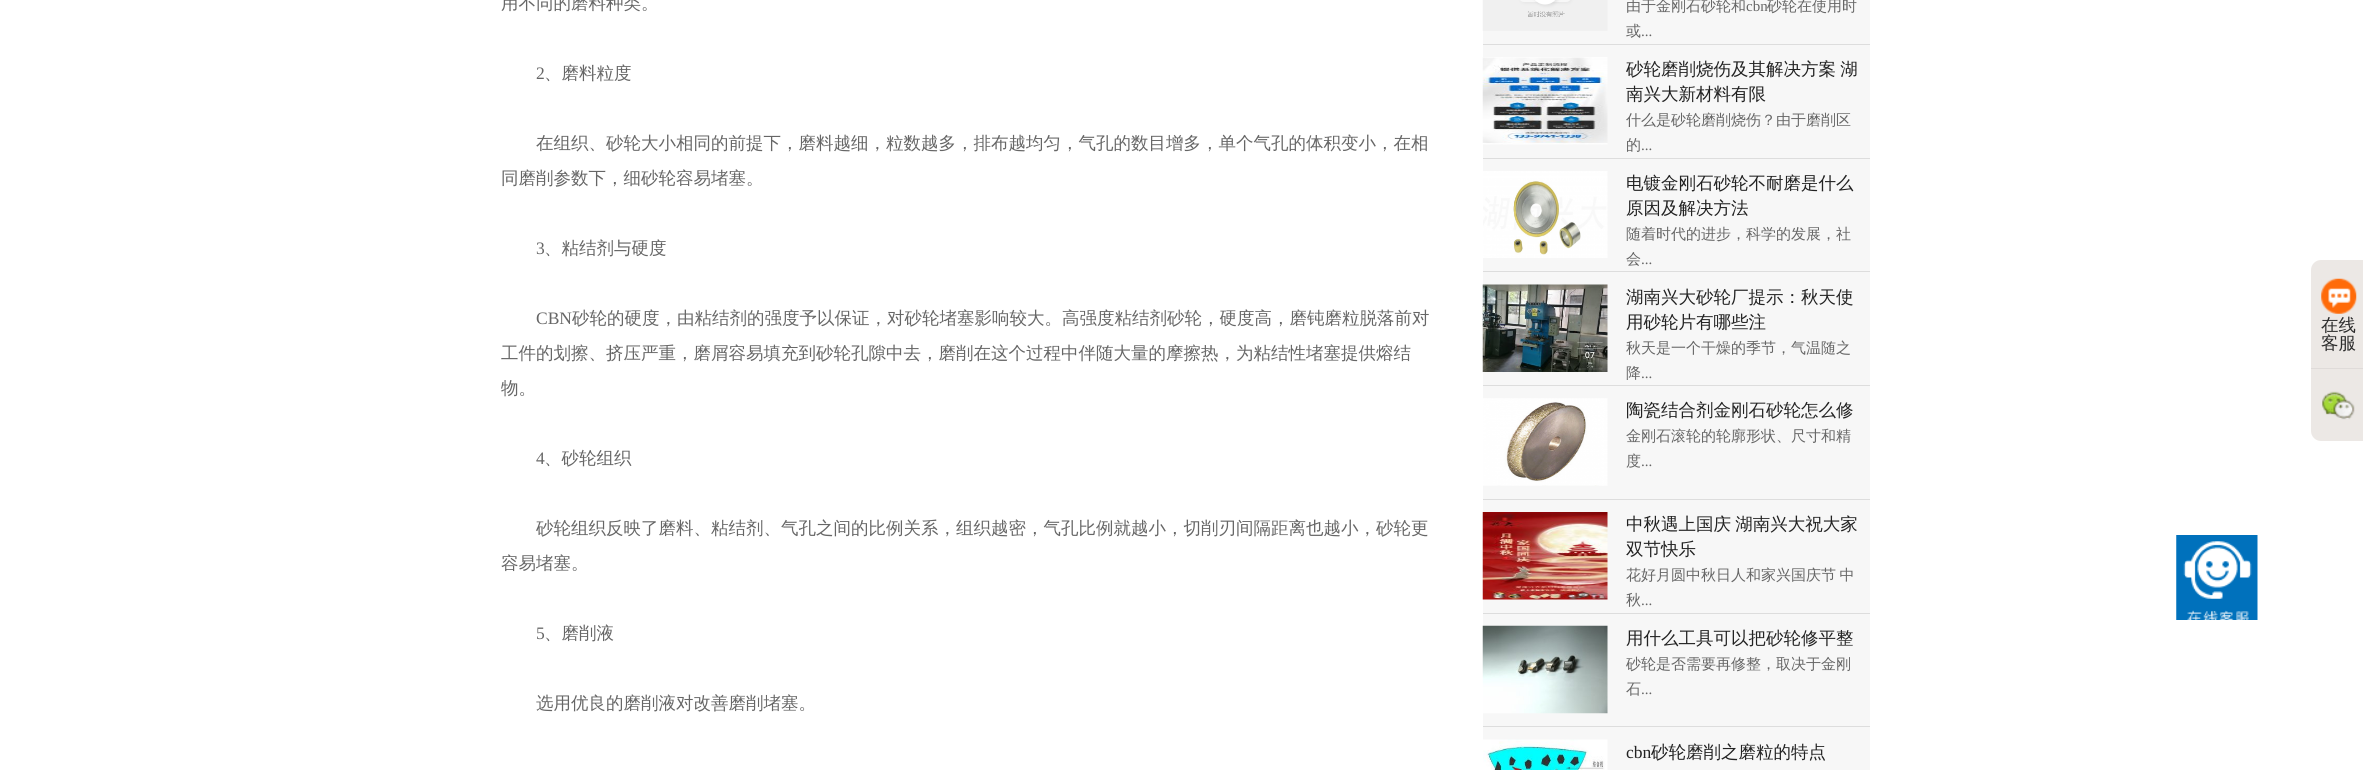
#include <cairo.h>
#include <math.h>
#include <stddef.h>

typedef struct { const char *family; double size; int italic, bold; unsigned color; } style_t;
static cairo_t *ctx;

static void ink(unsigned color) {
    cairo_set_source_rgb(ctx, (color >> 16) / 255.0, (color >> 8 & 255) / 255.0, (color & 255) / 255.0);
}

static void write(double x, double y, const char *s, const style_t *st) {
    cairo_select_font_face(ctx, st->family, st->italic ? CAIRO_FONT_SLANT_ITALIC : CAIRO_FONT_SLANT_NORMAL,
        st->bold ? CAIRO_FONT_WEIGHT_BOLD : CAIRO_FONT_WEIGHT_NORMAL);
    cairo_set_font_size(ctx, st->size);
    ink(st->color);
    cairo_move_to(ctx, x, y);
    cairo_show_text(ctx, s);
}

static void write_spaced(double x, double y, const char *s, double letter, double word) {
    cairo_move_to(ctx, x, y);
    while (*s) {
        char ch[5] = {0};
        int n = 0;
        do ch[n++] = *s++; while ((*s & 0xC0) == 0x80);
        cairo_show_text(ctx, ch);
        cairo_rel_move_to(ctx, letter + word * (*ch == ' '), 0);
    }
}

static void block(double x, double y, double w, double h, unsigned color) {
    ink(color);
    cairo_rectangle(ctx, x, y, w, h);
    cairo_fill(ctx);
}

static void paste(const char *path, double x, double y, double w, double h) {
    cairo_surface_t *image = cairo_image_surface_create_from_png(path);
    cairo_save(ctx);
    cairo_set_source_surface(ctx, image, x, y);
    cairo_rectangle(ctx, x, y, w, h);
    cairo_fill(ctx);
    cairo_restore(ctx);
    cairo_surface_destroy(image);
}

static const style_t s1 = {"WenQuanYi Zen Hei Medium", 17.5, 0, 0, 0x666666};
static const style_t s2 = {"Liberation Serif", 17.5, 0, 0, 0x666666};
static const style_t s3 = {"WenQuanYi Zen Hei Medium", 15, 0, 0, 0x666666};
static const style_t s4 = {"Liberation Serif", 15, 0, 0, 0x666666};
static const style_t s5 = {"WenQuanYi Zen Hei Medium", 17.5, 0, 0, 0x222222};
static const style_t s6 = {"Liberation Serif", 17.5, 0, 0, 0x222222};
static const style_t s7 = {"WenQuanYi Zen Hei Medium", 17.5, 0, 0, 0x2c2c2c};

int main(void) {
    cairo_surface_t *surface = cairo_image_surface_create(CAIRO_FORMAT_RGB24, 2363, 770);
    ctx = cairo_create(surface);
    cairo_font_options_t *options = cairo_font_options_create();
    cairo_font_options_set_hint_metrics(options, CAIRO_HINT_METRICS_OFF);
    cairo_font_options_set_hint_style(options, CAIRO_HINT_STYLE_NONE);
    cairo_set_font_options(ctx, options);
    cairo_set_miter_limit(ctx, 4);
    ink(0xffffff);
    cairo_paint(ctx);
    write(501, 9, "用不同的磨料种类。", &s1);
    write(536, 79, "2", &s2);
    write(544, 79, "、磨料粒度", &s1);
    write(536, 149, "在组织、砂轮大小相同的前提下，磨料越细，粒数越多，排布越均匀，气孔的数目增多，单个气孔的体积变小，在相", &s1);
    write(501, 184, "同磨削参数下，细砂轮容易堵塞。", &s1);
    write(536, 254, "3", &s2);
    write(544, 254, "、粘结剂与硬度", &s1);
    write(536, 324, "CBN", &s2);
    write(572, 324, "砂轮的硬度，由粘结剂的强度予以保证，对砂轮堵塞影响较大。高强度粘结剂砂轮，硬度高，磨钝磨粒脱落前对", &s1);
    write(501, 359, "工件的划擦、挤压严重，磨屑容易填充到砂轮孔隙中去，磨削在这个过程中伴随大量的摩擦热，为粘结性堵塞提供熔结", &s1);
    write(501, 394, "物。", &s1);
    write(536, 464, "4", &s2);
    write(544, 464, "、砂轮组织", &s1);
    write(536, 534, "砂轮组织反映了磨料、粘结剂、气孔之间的比例关系，组织越密，气孔比例就越小，切削刃间隔距离也越小，砂轮更", &s1);
    write(501, 569, "容易堵塞。", &s1);
    write(536, 639, "5", &s2);
    write(544, 639, "、磨削液", &s1);
    write(536, 709, "选用优良的磨削液对改善磨削堵塞。", &s1);
    block(1483, 0, 387, 770, 0xf7f7f7);
    paste("pic1.png", 1482, 0, 126, 31);
    write(1626, 11, "由于金刚石砂轮和", &s3);
    write(1746, 11, "cbn", &s4);
    write(1767, 11, "砂轮在使用时", &s3);
    write(1626, 36, "或", &s3);
    write(1641, 36, "...", &s4);
    block(1483, 44, 387, 1, 0xdddddd);
    paste("pic2.png", 1482, 57, 126, 88);
    cairo_select_font_face(ctx, "WenQuanYi Zen Hei Medium", CAIRO_FONT_SLANT_NORMAL, CAIRO_FONT_WEIGHT_NORMAL);
    cairo_set_font_size(ctx, 17.5);
    ink(0x222222);
    write_spaced(1626, 75, "砂轮磨削烧伤及其解决方案 湖", 0, -1);
    write(1626, 100, "南兴大新材料有限", &s5);
    write(1626, 125, "什么是砂轮磨削烧伤？由于磨削区", &s3);
    write(1626, 150, "的", &s3);
    write(1641, 150, "...", &s4);
    block(1483, 158, 387, 1, 0xdddddd);
    paste("pic3.png", 1483, 171, 125, 87);
    write(1626, 189, "电镀金刚石砂轮不耐磨是什么", &s5);
    write(1626, 214, "原因及解决方法", &s5);
    write(1626, 239, "随着时代的进步，科学的发展，社", &s3);
    write(1626, 264, "会", &s3);
    write(1641, 264, "...", &s4);
    block(1483, 271, 387, 1, 0xdddddd);
    paste("pic4.png", 1482, 284, 126, 88);
    write(1626, 303, "湖南兴大砂轮厂提示：秋天使", &s5);
    write(1626, 328, "用砂轮片有哪些注", &s5);
    write(1626, 353, "秋天是一个干燥的季节，气温随之", &s3);
    write(1626, 378, "降", &s3);
    write(1641, 378, "...", &s4);
    block(1483, 385, 387, 1, 0xdddddd);
    paste("pic5.png", 1483, 398, 125, 88);
    write(1626, 416, "陶瓷结合剂金刚石砂轮怎么修", &s5);
    write(1626, 441, "金刚石滚轮的轮廓形状、尺寸和精", &s3);
    write(1626, 466, "度", &s3);
    write(1641, 466, "...", &s4);
    block(1483, 499, 387, 1, 0xdddddd);
    paste("pic6.png", 1482, 512, 126, 88);
    cairo_select_font_face(ctx, "WenQuanYi Zen Hei Medium", CAIRO_FONT_SLANT_NORMAL, CAIRO_FONT_WEIGHT_NORMAL);
    cairo_set_font_size(ctx, 17.5);
    ink(0x222222);
    write_spaced(1626, 530, "中秋遇上国庆 湖南兴大祝大家", 0, -1);
    write(1626, 555, "双节快乐", &s5);
    cairo_set_font_size(ctx, 15);
    ink(0x666666);
    write_spaced(1626, 580, "花好月圆中秋日人和家兴国庆节 中", 0, -1);
    write(1626, 605, "秋", &s3);
    write(1641, 605, "...", &s4);
    block(1483, 613, 387, 1, 0xdddddd);
    paste("pic7.png", 1482, 625, 126, 89);
    write(1626, 644, "用什么工具可以把砂轮修平整", &s5);
    write(1626, 669, "砂轮是否需要再修整，取决于金刚", &s3);
    write(1626, 694, "石", &s3);
    write(1641, 694, "...", &s4);
    block(1483, 726, 387, 1, 0xdddddd);
    paste("pic8.png", 1483, 739, 125, 31);
    write(1626, 758, "cbn", &s6);
    write(1651, 758, "砂轮磨削之磨粒的特点", &s5);
    ink(0xece8e5);
    cairo_new_path(ctx);
    cairo_move_to(ctx, 2321, 260);
    cairo_line_to(ctx, 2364, 260);
    cairo_line_to(ctx, 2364, 369);
    cairo_line_to(ctx, 2311, 369);
    cairo_line_to(ctx, 2311, 270);
    cairo_curve_to(ctx, 2311, 264.5, 2315.5, 260, 2321, 260);
    cairo_close_path(ctx);
    cairo_fill(ctx);
    block(2311, 368, 52, 1, 0xdfdbd9);
    paste("pic9.png", 2321, 278, 36, 36);
    write(2321, 331, "在线", &s7);
    write(2321, 349, "客服", &s7);
    ink(0xece8e5);
    cairo_new_path(ctx);
    cairo_move_to(ctx, 2311, 369);
    cairo_line_to(ctx, 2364, 369);
    cairo_line_to(ctx, 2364, 441);
    cairo_line_to(ctx, 2321, 441);
    cairo_curve_to(ctx, 2315.5, 441, 2311, 436.5, 2311, 431);
    cairo_close_path(ctx);
    cairo_fill(ctx);
    paste("pic10.png", 2322, 391, 33, 29);
    paste("pic11.png", 2176, 535, 82, 85);
    cairo_surface_write_to_png(surface, "screenshot.png");
    cairo_font_options_destroy(options);
    cairo_destroy(ctx);
    cairo_surface_destroy(surface);
    return 0;
}
